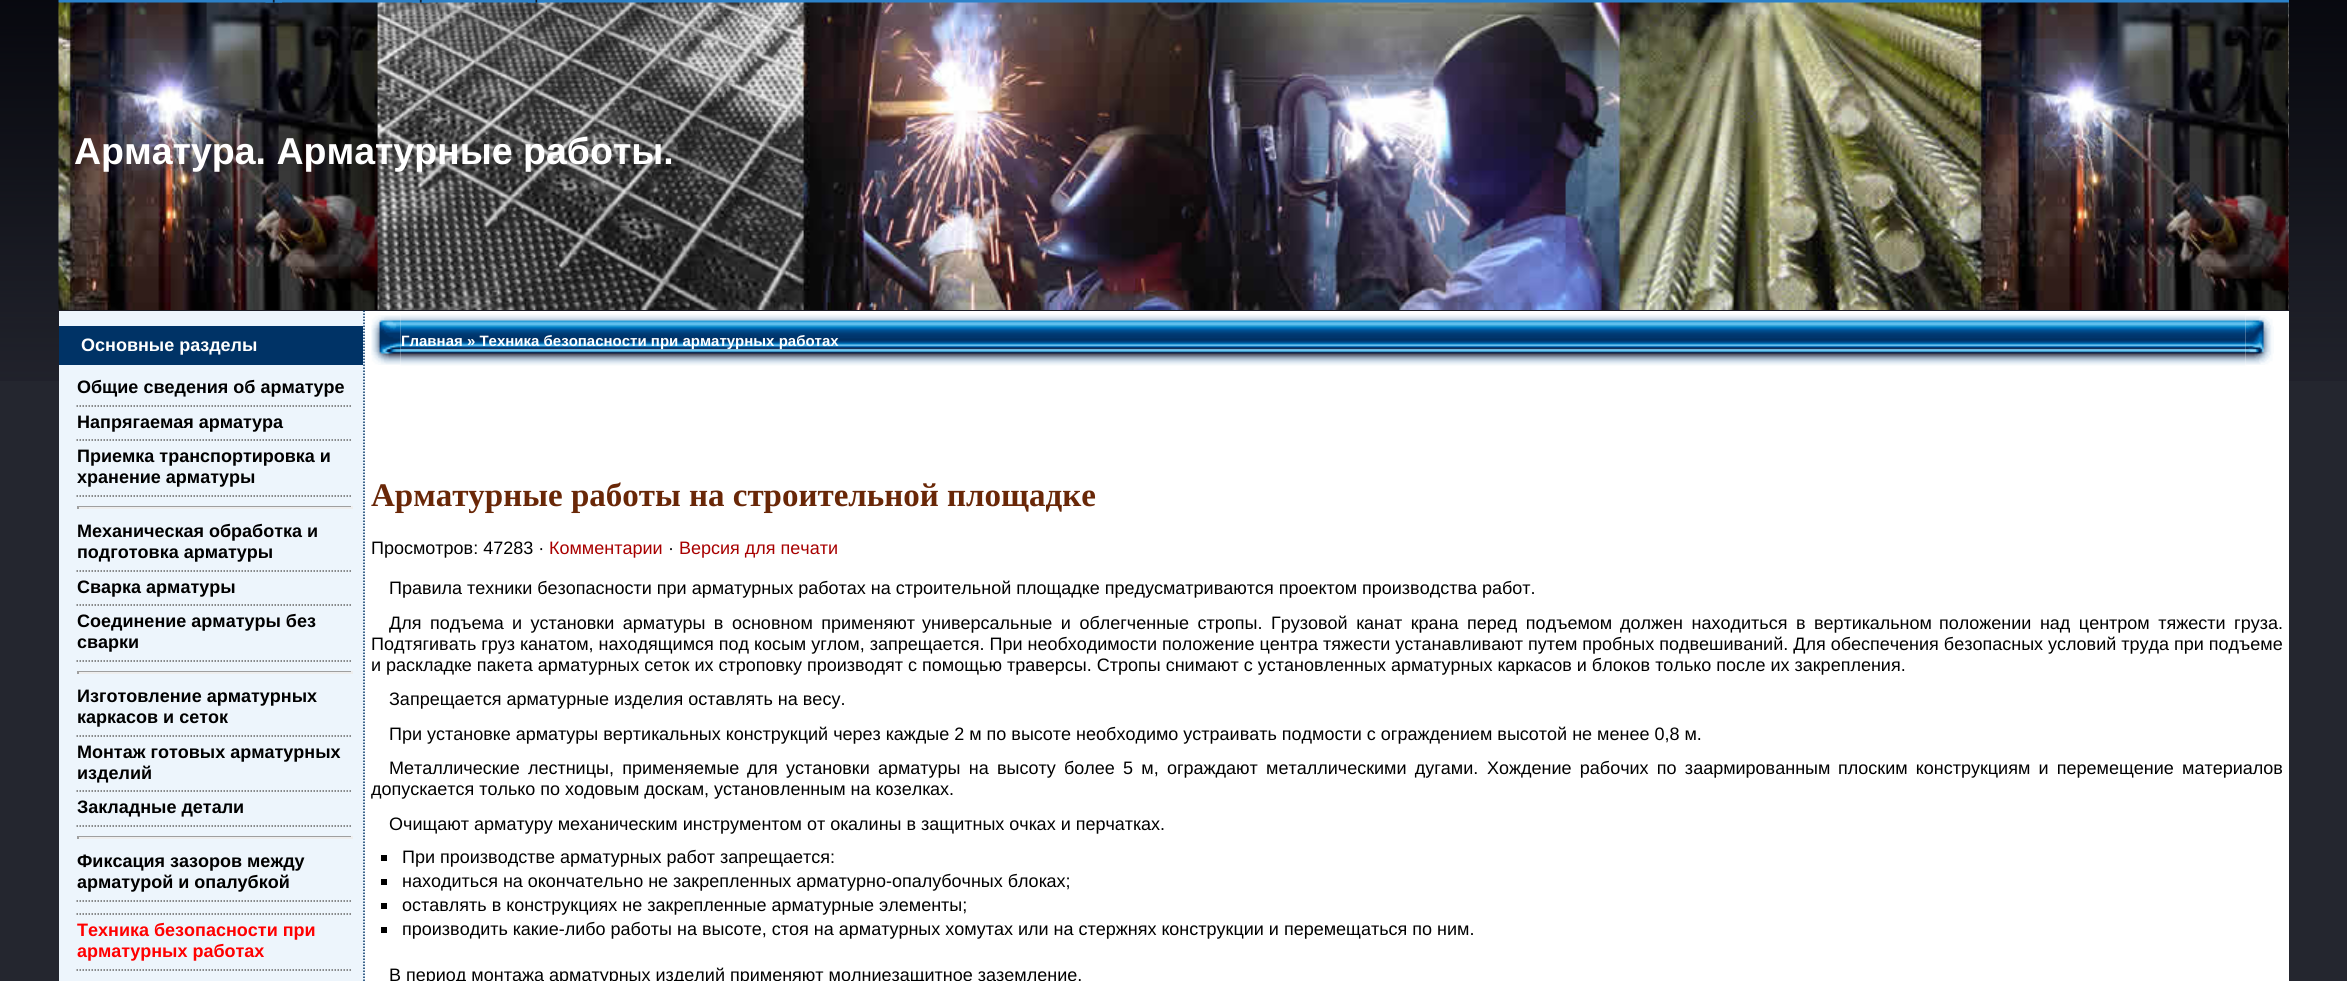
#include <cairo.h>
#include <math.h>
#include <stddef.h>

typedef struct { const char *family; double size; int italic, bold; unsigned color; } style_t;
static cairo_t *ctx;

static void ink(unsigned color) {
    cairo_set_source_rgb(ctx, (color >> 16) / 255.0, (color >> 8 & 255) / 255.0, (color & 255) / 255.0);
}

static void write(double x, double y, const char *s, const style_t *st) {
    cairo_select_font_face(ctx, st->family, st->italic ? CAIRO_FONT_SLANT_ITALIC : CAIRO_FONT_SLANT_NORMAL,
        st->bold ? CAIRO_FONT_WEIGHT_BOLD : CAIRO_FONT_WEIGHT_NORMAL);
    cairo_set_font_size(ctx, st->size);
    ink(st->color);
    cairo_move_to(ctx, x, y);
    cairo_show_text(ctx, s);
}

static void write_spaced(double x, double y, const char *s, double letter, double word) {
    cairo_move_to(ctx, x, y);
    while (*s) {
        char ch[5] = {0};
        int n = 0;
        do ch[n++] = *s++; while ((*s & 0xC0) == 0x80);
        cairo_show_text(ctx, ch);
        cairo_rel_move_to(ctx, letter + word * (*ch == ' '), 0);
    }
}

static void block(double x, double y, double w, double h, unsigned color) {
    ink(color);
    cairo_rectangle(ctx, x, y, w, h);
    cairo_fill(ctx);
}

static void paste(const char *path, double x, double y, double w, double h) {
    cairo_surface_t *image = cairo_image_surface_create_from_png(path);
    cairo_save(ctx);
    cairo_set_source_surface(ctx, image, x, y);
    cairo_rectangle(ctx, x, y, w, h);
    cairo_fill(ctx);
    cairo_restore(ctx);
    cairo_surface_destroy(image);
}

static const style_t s1 = {"Liberation Sans", 37.5, 0, 1, 0xffffff};
static const style_t s2 = {"Liberation Sans", 18, 0, 1, 0xffffff};
static const style_t s3 = {"Liberation Sans", 18, 0, 1, 0x000000};
static const style_t s4 = {"Liberation Sans", 18, 0, 1, 0xff0000};
static const style_t s5 = {"Liberation Sans", 15, 0, 1, 0xffffff};
static const style_t s6 = {"Liberation Serif", 33, 0, 1, 0x692707};
static const style_t s7 = {"Liberation Sans", 18, 0, 0, 0x000000};
static const style_t s8 = {"Liberation Sans", 18, 0, 0, 0xa80000};

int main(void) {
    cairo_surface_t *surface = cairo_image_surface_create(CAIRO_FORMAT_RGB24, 2347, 981);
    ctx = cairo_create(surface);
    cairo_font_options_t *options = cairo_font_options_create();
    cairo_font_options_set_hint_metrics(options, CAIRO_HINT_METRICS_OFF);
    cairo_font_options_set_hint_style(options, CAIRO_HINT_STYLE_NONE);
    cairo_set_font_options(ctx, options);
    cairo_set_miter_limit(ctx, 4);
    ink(0x24262f);
    cairo_paint(ctx);
    paste("pic1.png", 0, 0, 2347, 381);
    block(59, 0, 2230, 3, 0x2b82ca);
    paste("pic2.png", 58, 0, 1, 3);
    paste("pic6.png", 58, 2, 2231, 308);
    paste("pic3.png", 265, 0, 17, 3);
    paste("pic4.png", 412, 0, 17, 3);
    paste("pic5.png", 528, 0, 17, 3);
    write(74, 164, "Арматура. Арматурные работы.", &s1);
    block(365, 311, 1924, 670, 0xffffff);
    block(59, 311, 306, 670, 0xedf5fc);
    cairo_new_path(ctx);
    cairo_move_to(ctx, 364, 310.5);
    cairo_line_to(ctx, 364, 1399.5);
    ink(0x003366);
    cairo_set_line_width(ctx, 1.5);
    cairo_set_dash(ctx, (double[]){1.5, 1.5}, 2, 0);
    cairo_stroke(ctx);
    block(59, 326, 304, 39, 0x003366);
    write(81, 351, "Основные разделы", &s2);
    cairo_new_path(ctx);
    cairo_move_to(ctx, 76.5, 406);
    cairo_line_to(ctx, 352.5, 406);
    ink(0x666666);
    cairo_stroke(ctx);
    write(77, 393, "Общие сведения об арматуре", &s3);
    cairo_new_path(ctx);
    cairo_move_to(ctx, 76.5, 440);
    cairo_line_to(ctx, 352.5, 440);
    ink(0x666666);
    cairo_stroke(ctx);
    write(77, 428, "Напрягаемая арматура", &s3);
    cairo_new_path(ctx);
    cairo_move_to(ctx, 76.5, 496);
    cairo_line_to(ctx, 352.5, 496);
    ink(0x666666);
    cairo_stroke(ctx);
    write(77, 462, "Приемка транспортировка и", &s3);
    write(77, 483, "хранение арматуры", &s3);
    block(77, 506, 276, 1, 0x9f9f9f);
    block(351, 506, 2, 3, 0xeeeeee);
    block(77, 507, 276, 2, 0xeeeeee);
    block(77, 506, 2, 3, 0x9f9f9f);
    cairo_new_path(ctx);
    cairo_move_to(ctx, 76.5, 571);
    cairo_line_to(ctx, 352.5, 571);
    ink(0x666666);
    cairo_stroke(ctx);
    write(77, 537, "Механическая обработка и", &s3);
    write(77, 558, "подготовка арматуры", &s3);
    cairo_new_path(ctx);
    cairo_move_to(ctx, 76.5, 605);
    cairo_line_to(ctx, 352.5, 605);
    ink(0x666666);
    cairo_stroke(ctx);
    write(77, 593, "Сварка арматуры", &s3);
    cairo_new_path(ctx);
    cairo_move_to(ctx, 76.5, 661);
    cairo_line_to(ctx, 352.5, 661);
    ink(0x666666);
    cairo_stroke(ctx);
    write(77, 627, "Соединение арматуры без", &s3);
    write(77, 648, "сварки", &s3);
    block(77, 671, 276, 1, 0x9f9f9f);
    block(351, 671, 2, 3, 0xeeeeee);
    block(77, 672, 276, 2, 0xeeeeee);
    block(77, 671, 2, 3, 0x9f9f9f);
    cairo_new_path(ctx);
    cairo_move_to(ctx, 76.5, 736);
    cairo_line_to(ctx, 352.5, 736);
    ink(0x666666);
    cairo_stroke(ctx);
    write(77, 702, "Изготовление арматурных", &s3);
    write(77, 723, "каркасов и сеток", &s3);
    cairo_new_path(ctx);
    cairo_move_to(ctx, 76.5, 791);
    cairo_line_to(ctx, 352.5, 791);
    ink(0x666666);
    cairo_stroke(ctx);
    write(77, 758, "Монтаж готовых арматурных", &s3);
    write(77, 779, "изделий", &s3);
    cairo_new_path(ctx);
    cairo_move_to(ctx, 76.5, 826);
    cairo_line_to(ctx, 352.5, 826);
    ink(0x666666);
    cairo_stroke(ctx);
    write(77, 813, "Закладные детали", &s3);
    block(77, 836, 276, 1, 0x9f9f9f);
    block(351, 836, 2, 3, 0xeeeeee);
    block(77, 837, 276, 2, 0xeeeeee);
    block(77, 836, 2, 3, 0x9f9f9f);
    cairo_new_path(ctx);
    cairo_move_to(ctx, 76.5, 901);
    cairo_line_to(ctx, 352.5, 901);
    ink(0x666666);
    cairo_stroke(ctx);
    write(77, 867, "Фиксация зазоров между", &s3);
    write(77, 888, "арматурой и опалубкой", &s3);
    cairo_new_path(ctx);
    cairo_move_to(ctx, 76.5, 914);
    cairo_line_to(ctx, 352.5, 914);
    ink(0x666666);
    cairo_stroke(ctx);
    cairo_new_path(ctx);
    cairo_move_to(ctx, 76.5, 970);
    cairo_line_to(ctx, 352.5, 970);
    cairo_stroke(ctx);
    write(77, 936, "Техника безопасности при", &s4);
    write(77, 957, "арматурных работах", &s4);
    paste("pic8.png", 400, 314, 1846, 52);
    paste("pic7.png", 371, 315, 30, 50);
    write(401, 346, "Главная » Техника безопасности при арматурных работах", &s5);
    paste("pic9.png", 2245, 315, 29, 50);
    write(371, 506, "Арматурные работы на строительной площадке", &s6);
    write(371, 554, "Просмотров: 47283 ·", &s7);
    write(549, 554, "Комментарии", &s8);
    write(668, 554, "·", &s7);
    write(679, 554, "Версия для печати", &s8);
    write(389, 594, "Правила техники безопасности при арматурных работах на строительной площадке предусматриваются проектом производства работ.", &s7);
    write_spaced(389, 629, "Для подъема", 0, 3.5);
    write_spaced(512, 629, "и установки арматуры в основном применяют", 0, 3.5);
    write_spaced(922, 629, "универсальные и облегченные стропы.", 0, 3.5);
    write_spaced(1271, 629, "Грузовой канат крана перед подъемом", 0, 3.5);
    write_spaced(1620, 629, "должен находиться в вертикальном", 0, 3.5);
    write_spaced(1939, 629, "положении над центром тяжести груза.", 0, 3.5);
    write(371, 650, "Подтягивать груз канатом, находящимся под косым углом, запрещается. При необходимости положение центра тяжести устанавливают путем пробных подвешиваний. Для обеспечения безопасных условий труда при подъеме", &s7);
    write(371, 671, "и раскладке пакета арматурных сеток их строповку производят с помощью траверсы. Стропы снимают с установленных арматурных каркасов и блоков только после их закрепления.", &s7);
    write(389, 705, "Запрещается арматурные изделия оставлять на весу.", &s7);
    write(389, 740, "При установке арматуры вертикальных конструкций через каждые 2 м по высоте необходимо устраивать подмости с ограждением высотой не менее 0,8 м.", &s7);
    write_spaced(389, 774, "Металлические лестницы, применяемые", 0, 3.25);
    write_spaced(747, 774, "для установки арматуры на высоту более", 0, 3.25);
    write_spaced(1123, 774, "5 м, ограждают металлическими дугами.", 0, 3.25);
    write_spaced(1487, 774, "Хождение рабочих по заармированным", 0, 3.25);
    write_spaced(1838, 774, "плоским конструкциям и перемещение", 0, 3.25);
    write(2182, 774, "материалов", &s7);
    write(371, 795, "допускается только по ходовым доскам, установленным на козелках.", &s7);
    write(389, 830, "Очищают арматуру механическим инструментом от окалины в защитных очках и перчатках.", &s7);
    block(381, 855, 6, 6, 0x000000);
    write(402, 863, "При производстве арматурных работ запрещается:", &s7);
    block(381, 879, 6, 6, 0x000000);
    write(402, 887, "находиться на окончательно не закрепленных арматурно-опалубочных блоках;", &s7);
    block(381, 903, 6, 6, 0x000000);
    write(402, 911, "оставлять в конструкциях не закрепленные арматурные элементы;", &s7);
    block(381, 927, 6, 6, 0x000000);
    write(402, 935, "производить какие-либо работы на высоте, стоя на арматурных хомутах или на стержнях конструкции и перемещаться по ним.", &s7);
    write(389, 981, "В период монтажа арматурных изделий применяют молниезащитное заземление.", &s7);
    cairo_surface_write_to_png(surface, "screenshot.png");
    cairo_font_options_destroy(options);
    cairo_destroy(ctx);
    cairo_surface_destroy(surface);
    return 0;
}
